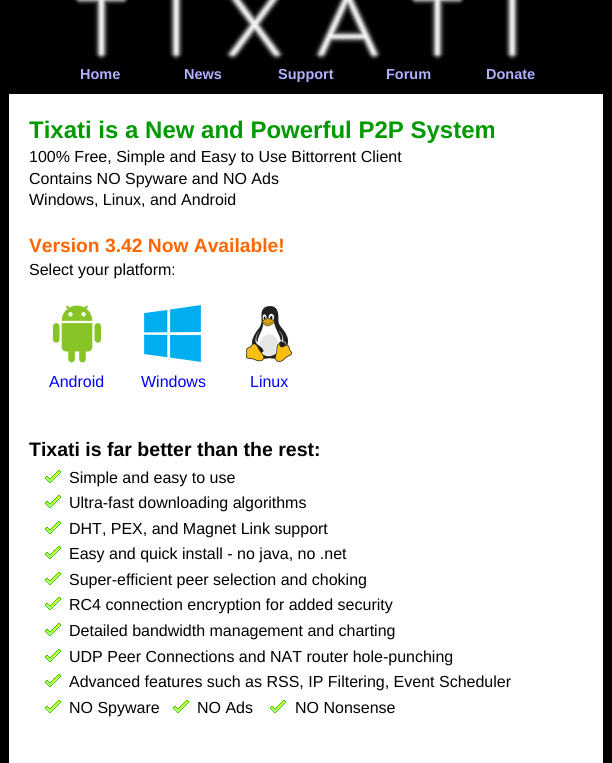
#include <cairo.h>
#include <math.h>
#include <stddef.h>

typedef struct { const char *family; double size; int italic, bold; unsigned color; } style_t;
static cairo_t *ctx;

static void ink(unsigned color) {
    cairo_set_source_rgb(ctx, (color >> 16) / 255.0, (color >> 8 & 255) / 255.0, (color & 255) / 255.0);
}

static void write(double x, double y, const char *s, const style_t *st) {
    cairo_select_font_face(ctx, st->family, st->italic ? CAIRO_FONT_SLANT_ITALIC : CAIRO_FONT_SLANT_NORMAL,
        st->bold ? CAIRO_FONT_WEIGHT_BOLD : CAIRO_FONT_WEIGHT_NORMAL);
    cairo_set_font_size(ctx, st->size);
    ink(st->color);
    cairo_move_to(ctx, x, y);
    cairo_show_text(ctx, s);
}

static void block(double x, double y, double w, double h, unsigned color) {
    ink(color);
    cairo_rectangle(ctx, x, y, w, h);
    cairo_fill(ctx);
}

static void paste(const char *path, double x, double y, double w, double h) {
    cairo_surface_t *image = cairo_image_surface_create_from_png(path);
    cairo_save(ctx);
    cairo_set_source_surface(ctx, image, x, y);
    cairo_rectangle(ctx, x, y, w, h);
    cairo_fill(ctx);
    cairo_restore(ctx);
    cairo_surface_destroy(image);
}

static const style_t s1 = {"Liberation Sans", 14.5, 0, 1, 0xb0b0ff};
static const style_t s2 = {"Liberation Sans", 24, 0, 1, 0x009900};
static const style_t s3 = {"Liberation Sans", 16, 0, 0, 0x000000};
static const style_t s4 = {"Liberation Sans", 19.25, 0, 1, 0xff6600};
static const style_t s5 = {"Liberation Sans", 16, 0, 0, 0x0000ff};
static const style_t s6 = {"Liberation Sans", 19.5, 0, 1, 0x000000};

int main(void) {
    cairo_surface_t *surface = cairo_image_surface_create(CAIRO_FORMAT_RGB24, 612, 763);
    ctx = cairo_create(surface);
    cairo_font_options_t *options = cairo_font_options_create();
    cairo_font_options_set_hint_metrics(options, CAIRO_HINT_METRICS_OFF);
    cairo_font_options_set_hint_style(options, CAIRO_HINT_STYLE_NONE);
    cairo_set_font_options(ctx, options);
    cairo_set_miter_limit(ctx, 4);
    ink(0xffffff);
    cairo_paint(ctx);
    block(0, 0, 612, 94, 0x000000);
    paste("pic1.png", 73, 0, 447, 61);
    write(80, 79, "Home", &s1);
    write(184, 79, "News", &s1);
    write(278, 79, "Support", &s1);
    write(386, 79, "Forum", &s1);
    write(486, 79, "Donate", &s1);
    block(603, 94, 9, 669, 0x000000);
    block(0, 94, 9, 669, 0x000000);
    write(29, 138, "Tixati is a New and Powerful P2P System", &s2);
    write(29, 162, "100% Free, Simple and Easy to Use Bittorrent Client", &s3);
    write(29, 184, "Contains NO Spyware and NO Ads", &s3);
    write(29, 205, "Windows, Linux, and Android", &s3);
    write(29, 252, "Version 3.42 Now Available!", &s4);
    write(29, 275, "Select your platform:", &s3);
    paste("pic2.png", 52, 305, 50, 58);
    write(49, 387, "Android", &s5);
    paste("pic3.png", 144, 305, 57, 57);
    write(141, 387, "Windows", &s5);
    paste("pic4.png", 245, 306, 47, 56);
    write(250, 387, "Linux", &s5);
    write(29, 456, "Tixati is far better than the rest:", &s6);
    paste("pic5.png", 45, 470, 16, 13);
    write(69, 483, "Simple and easy to use", &s3);
    paste("pic5.png", 45, 495, 16, 13);
    write(69, 508, "Ultra-fast downloading algorithms", &s3);
    paste("pic5.png", 45, 521, 16, 13);
    write(69, 534, "DHT, PEX, and Magnet Link support", &s3);
    paste("pic5.png", 45, 546, 16, 13);
    write(69, 559, "Easy and quick install - no java, no .net", &s3);
    paste("pic5.png", 45, 572, 16, 13);
    write(69, 585, "Super-efficient peer selection and choking", &s3);
    paste("pic5.png", 45, 597, 16, 13);
    write(69, 610, "RC4 connection encryption for added security", &s3);
    paste("pic5.png", 45, 623, 16, 13);
    write(69, 636, "Detailed bandwidth management and charting", &s3);
    paste("pic5.png", 45, 649, 16, 13);
    write(69, 662, "UDP Peer Connections and NAT router hole-punching", &s3);
    paste("pic5.png", 45, 674, 16, 13);
    write(69, 687, "Advanced features such as RSS, IP Filtering, Event Scheduler", &s3);
    paste("pic5.png", 45, 700, 16, 13);
    write(69, 713, "NO Spyware", &s3);
    paste("pic5.png", 173, 700, 16, 13);
    write(197, 713, "NO Ads", &s3);
    paste("pic5.png", 270, 700, 16, 13);
    write(295, 713, "NO Nonsense", &s3);
    cairo_surface_write_to_png(surface, "screenshot.png");
    cairo_font_options_destroy(options);
    cairo_destroy(ctx);
    cairo_surface_destroy(surface);
    return 0;
}
